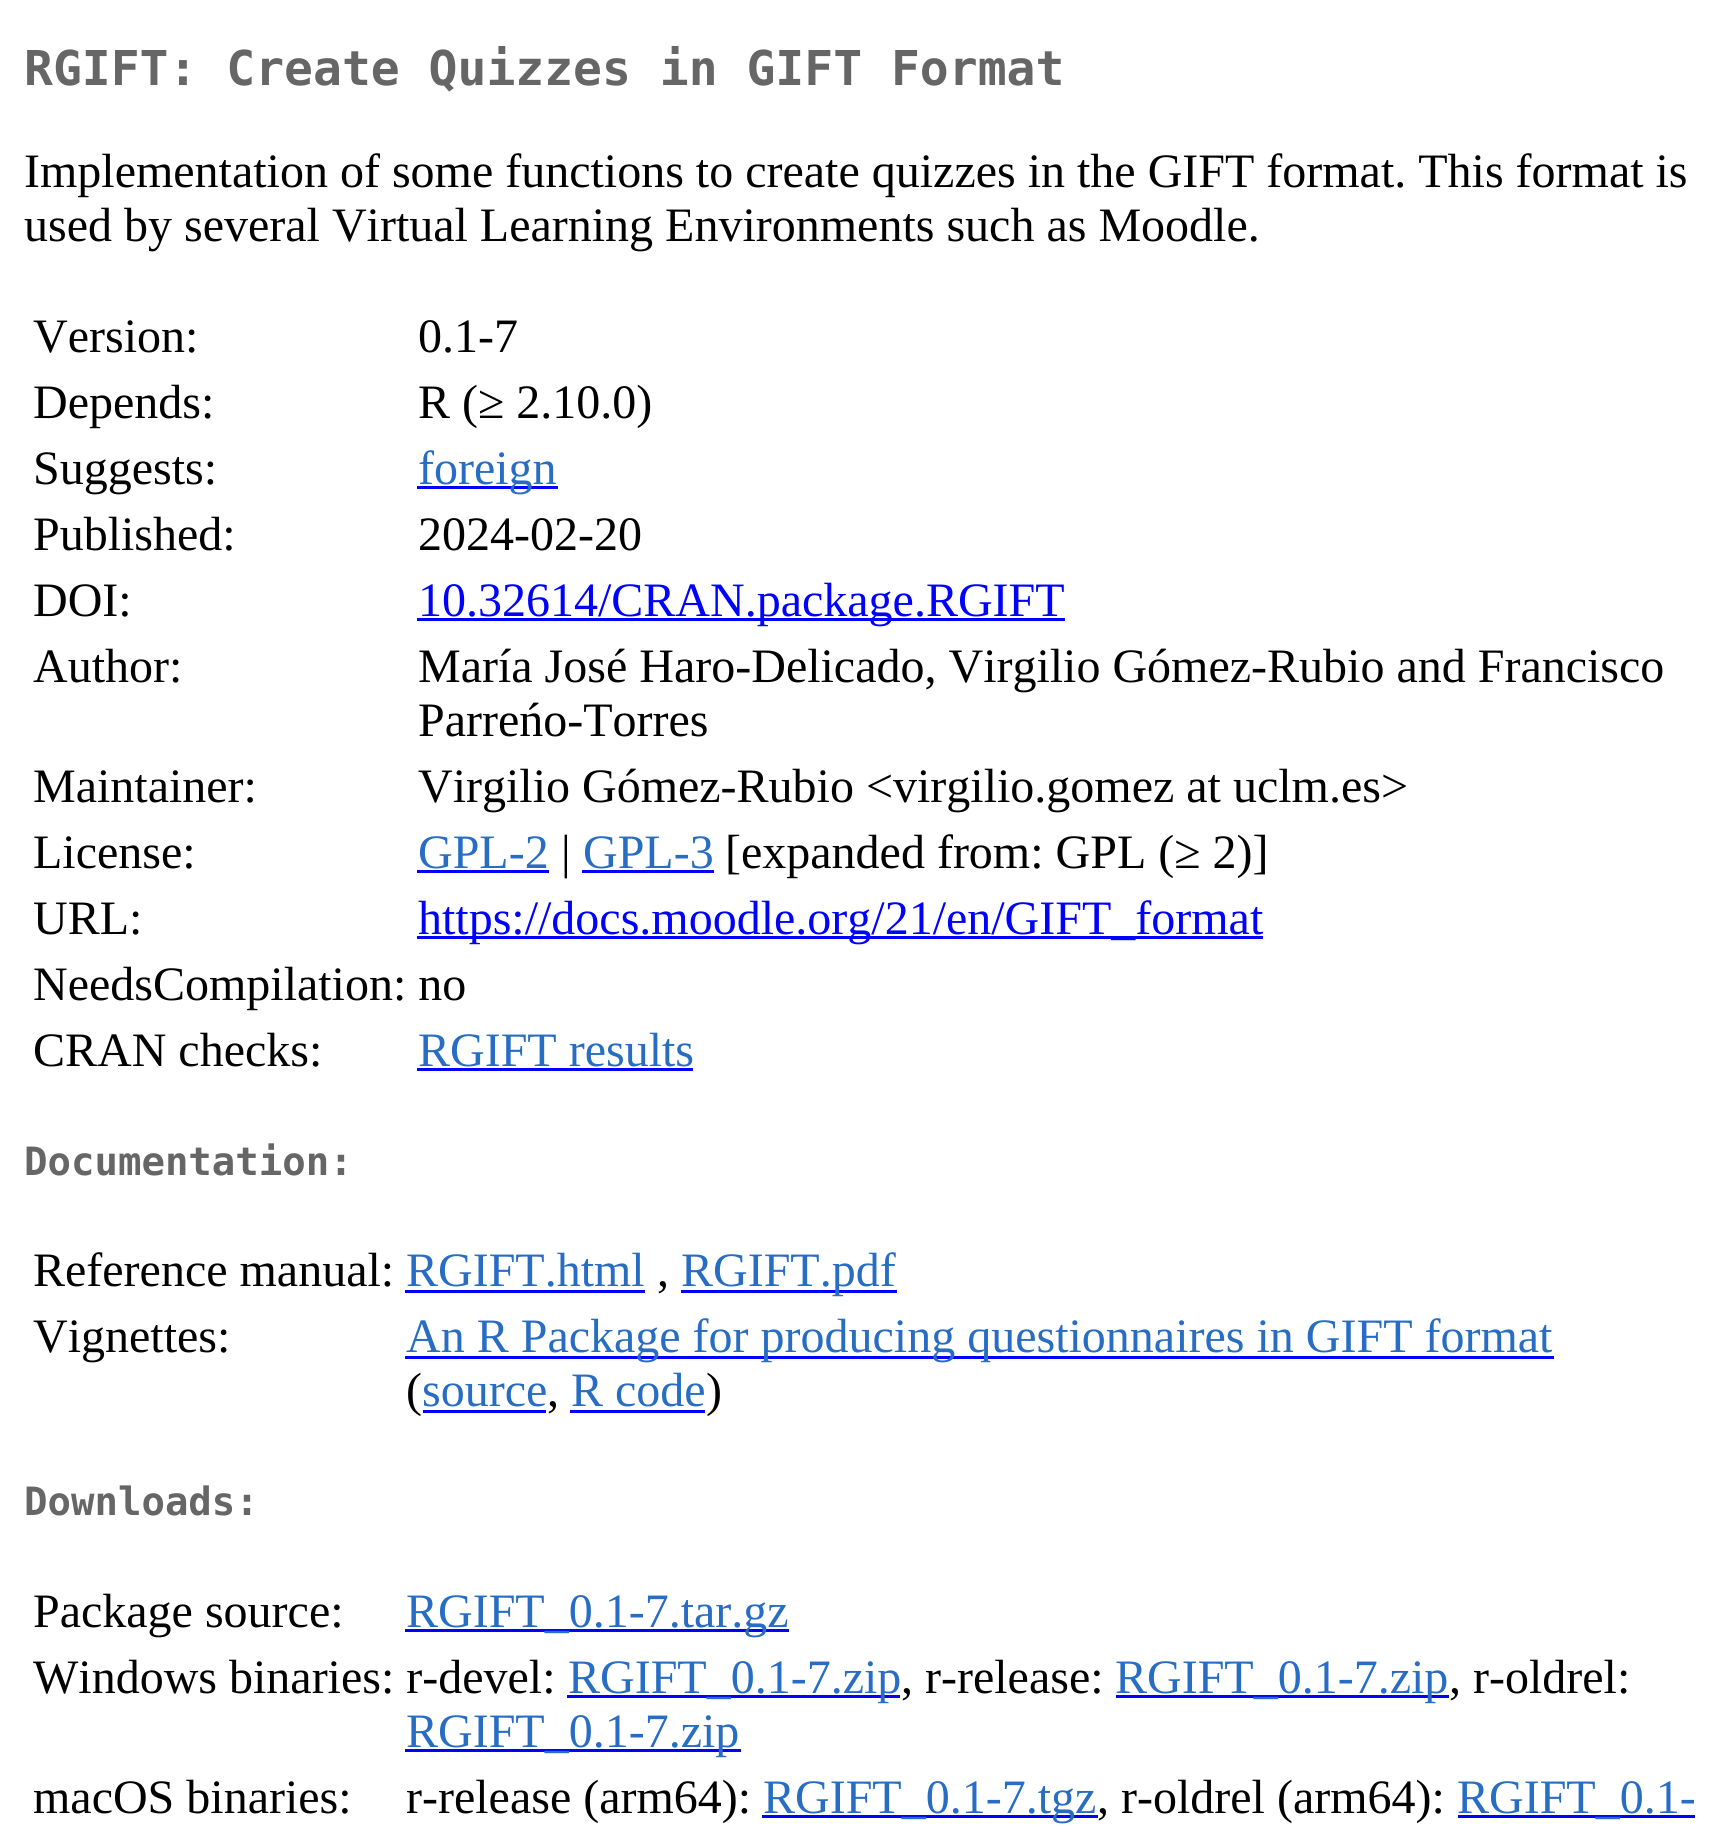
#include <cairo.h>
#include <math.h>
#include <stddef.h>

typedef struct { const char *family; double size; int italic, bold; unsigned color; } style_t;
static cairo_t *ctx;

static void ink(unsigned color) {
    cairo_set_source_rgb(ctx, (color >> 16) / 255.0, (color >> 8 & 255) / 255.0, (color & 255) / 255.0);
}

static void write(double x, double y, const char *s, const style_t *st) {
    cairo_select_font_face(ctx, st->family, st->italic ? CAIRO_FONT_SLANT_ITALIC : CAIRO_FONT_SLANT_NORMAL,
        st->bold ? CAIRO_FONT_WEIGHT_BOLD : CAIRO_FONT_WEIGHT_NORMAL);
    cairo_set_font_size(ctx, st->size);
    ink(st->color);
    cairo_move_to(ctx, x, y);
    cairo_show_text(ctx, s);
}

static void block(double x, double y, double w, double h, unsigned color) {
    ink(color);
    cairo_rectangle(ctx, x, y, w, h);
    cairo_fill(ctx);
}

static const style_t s1 = {"DejaVu Sans Mono", 48, 0, 1, 0x666666};
static const style_t s2 = {"Liberation Serif", 48, 0, 0, 0x000000};
static const style_t s3 = {"Liberation Serif", 48, 0, 0, 0x276dc3};
static const style_t s4 = {"Liberation Serif", 48, 0, 0, 0x0000ff};
static const style_t s5 = {"DejaVu Sans Mono", 39, 0, 1, 0x666666};

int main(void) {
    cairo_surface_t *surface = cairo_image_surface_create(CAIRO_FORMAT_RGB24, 1731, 1832);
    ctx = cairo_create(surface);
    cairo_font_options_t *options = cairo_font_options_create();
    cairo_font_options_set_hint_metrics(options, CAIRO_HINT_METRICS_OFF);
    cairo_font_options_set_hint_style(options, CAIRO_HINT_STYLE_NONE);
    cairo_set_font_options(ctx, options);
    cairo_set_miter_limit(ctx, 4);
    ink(0xffffff);
    cairo_paint(ctx);
    write(24, 85, "RGIFT: Create Quizzes in GIFT Format", &s1);
    write(24, 187, "Implementation of some functions to create quizzes in the GIFT format. This format is", &s2);
    write(24, 241, "used by several Virtual Learning Environments such as Moodle.", &s2);
    write(33, 352, "Version:", &s2);
    write(418, 352, "0.1-7", &s2);
    write(33, 418, "Depends:", &s2);
    write(418, 418, "R (≥ 2.10.0)", &s2);
    write(33, 484, "Suggests:", &s2);
    block(417, 486, 141, 3, 0x0000ff);
    write(418, 484, "foreign", &s3);
    write(33, 550, "Published:", &s2);
    write(418, 550, "2024-02-20", &s2);
    write(33, 616, "DOI:", &s2);
    block(417, 618, 648, 3, 0x0000ff);
    write(418, 616, "10.32614/CRAN.package.RGIFT", &s4);
    write(33, 682, "Author:", &s2);
    write(418, 682, "María José Haro-Delicado, Virgilio Gómez-Rubio and Francisco", &s2);
    write(418, 736, "Parreńo-Torres", &s2);
    write(33, 802, "Maintainer:", &s2);
    write(418, 802, "Virgilio Gómez-Rubio <virgilio.gomez at uclm.es>", &s2);
    write(33, 868, "License:", &s2);
    write(418, 868, "GPL-2", &s3);
    block(417, 870, 132, 3, 0x0000ff);
    write(561, 868, "|", &s2);
    write(583, 868, "GPL-3", &s3);
    block(582, 870, 132, 3, 0x0000ff);
    write(725, 868, "[expanded from: GPL (≥ 2)]", &s2);
    write(33, 934, "URL:", &s2);
    block(417, 936, 846, 3, 0x0000ff);
    write(418, 934, "https://docs.moodle.org/21/en/GIFT_format", &s4);
    write(33, 1000, "NeedsCompilation: no", &s2);
    write(33, 1066, "CRAN checks:", &s2);
    write(418, 1066, "RGIFT results", &s3);
    block(417, 1068, 276, 3, 0x0000ff);
    write(24, 1175, "Documentation:", &s5);
    write(33, 1286, "Reference manual:", &s2);
    write(406, 1286, "RGIFT.html", &s3);
    block(405, 1290, 240, 3, 0x0000ff);
    write(657, 1286, ",", &s2);
    block(681, 1290, 216, 3, 0x0000ff);
    write(681, 1286, "RGIFT.pdf", &s3);
    write(33, 1352, "Vignettes:", &s2);
    block(405, 1356, 1149, 3, 0x0000ff);
    write(406, 1352, "An R Package for producing questionnaires in GIFT format", &s3);
    write(406, 1406, "(", &s2);
    write(422, 1406, "source", &s3);
    block(423, 1410, 123, 3, 0x0000ff);
    write(547, 1406, ",", &s2);
    write(571, 1406, "R code", &s3);
    block(570, 1410, 135, 3, 0x0000ff);
    write(706, 1406, ")", &s2);
    write(24, 1515, "Downloads:", &s5);
    write(33, 1627, "Package source:", &s2);
    block(405, 1629, 384, 3, 0x0000ff);
    write(406, 1627, "RGIFT_0.1-7.tar.gz", &s3);
    write(33, 1693, "Windows binaries: r-devel:", &s2);
    block(567, 1695, 333, 3, 0x0000ff);
    write(568, 1693, "RGIFT_0.1-7.zip", &s3);
    write(901, 1693, ", r-release:", &s2);
    block(1116, 1695, 333, 3, 0x0000ff);
    write(1115, 1693, "RGIFT_0.1-7.zip", &s3);
    write(1449, 1693, ", r-oldrel:", &s2);
    block(405, 1749, 336, 3, 0x0000ff);
    write(406, 1747, "RGIFT_0.1-7.zip", &s3);
    write(33, 1813, "macOS binaries:", &s2);
    write(406, 1813, "r-release (arm64):", &s2);
    block(762, 1815, 336, 3, 0x0000ff);
    write(763, 1813, "RGIFT_0.1-7.tgz", &s3);
    write(1097, 1813, ", r-oldrel (arm64):", &s2);
    block(1458, 1815, 237, 3, 0x0000ff);
    write(1457, 1813, "RGIFT_0.1-", &s3);
    cairo_surface_write_to_png(surface, "screenshot.png");
    cairo_font_options_destroy(options);
    cairo_destroy(ctx);
    cairo_surface_destroy(surface);
    return 0;
}
